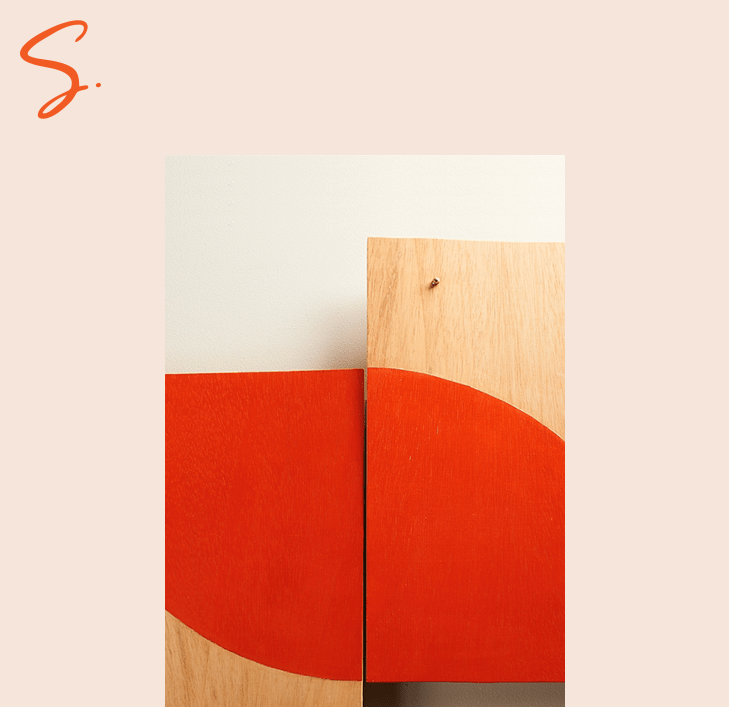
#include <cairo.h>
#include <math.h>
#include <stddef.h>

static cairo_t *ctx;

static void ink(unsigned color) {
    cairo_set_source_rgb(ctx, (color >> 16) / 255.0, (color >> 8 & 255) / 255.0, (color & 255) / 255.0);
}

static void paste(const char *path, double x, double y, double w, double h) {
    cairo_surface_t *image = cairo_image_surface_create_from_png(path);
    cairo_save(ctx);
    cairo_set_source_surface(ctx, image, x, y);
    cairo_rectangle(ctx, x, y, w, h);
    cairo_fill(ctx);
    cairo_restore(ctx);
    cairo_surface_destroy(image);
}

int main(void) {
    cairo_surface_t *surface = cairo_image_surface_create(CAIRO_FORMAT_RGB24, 729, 707);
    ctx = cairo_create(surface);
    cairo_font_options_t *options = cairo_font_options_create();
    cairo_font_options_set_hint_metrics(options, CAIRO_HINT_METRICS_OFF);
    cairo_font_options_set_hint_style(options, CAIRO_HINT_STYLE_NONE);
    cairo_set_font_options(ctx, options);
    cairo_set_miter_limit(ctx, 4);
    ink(0xf5e5db);
    cairo_paint(ctx);
    paste("pic1.png", 20, 20, 81, 99);
    paste("pic2.png", 165, 155, 400, 552);
    cairo_surface_write_to_png(surface, "screenshot.png");
    cairo_font_options_destroy(options);
    cairo_destroy(ctx);
    cairo_surface_destroy(surface);
    return 0;
}
